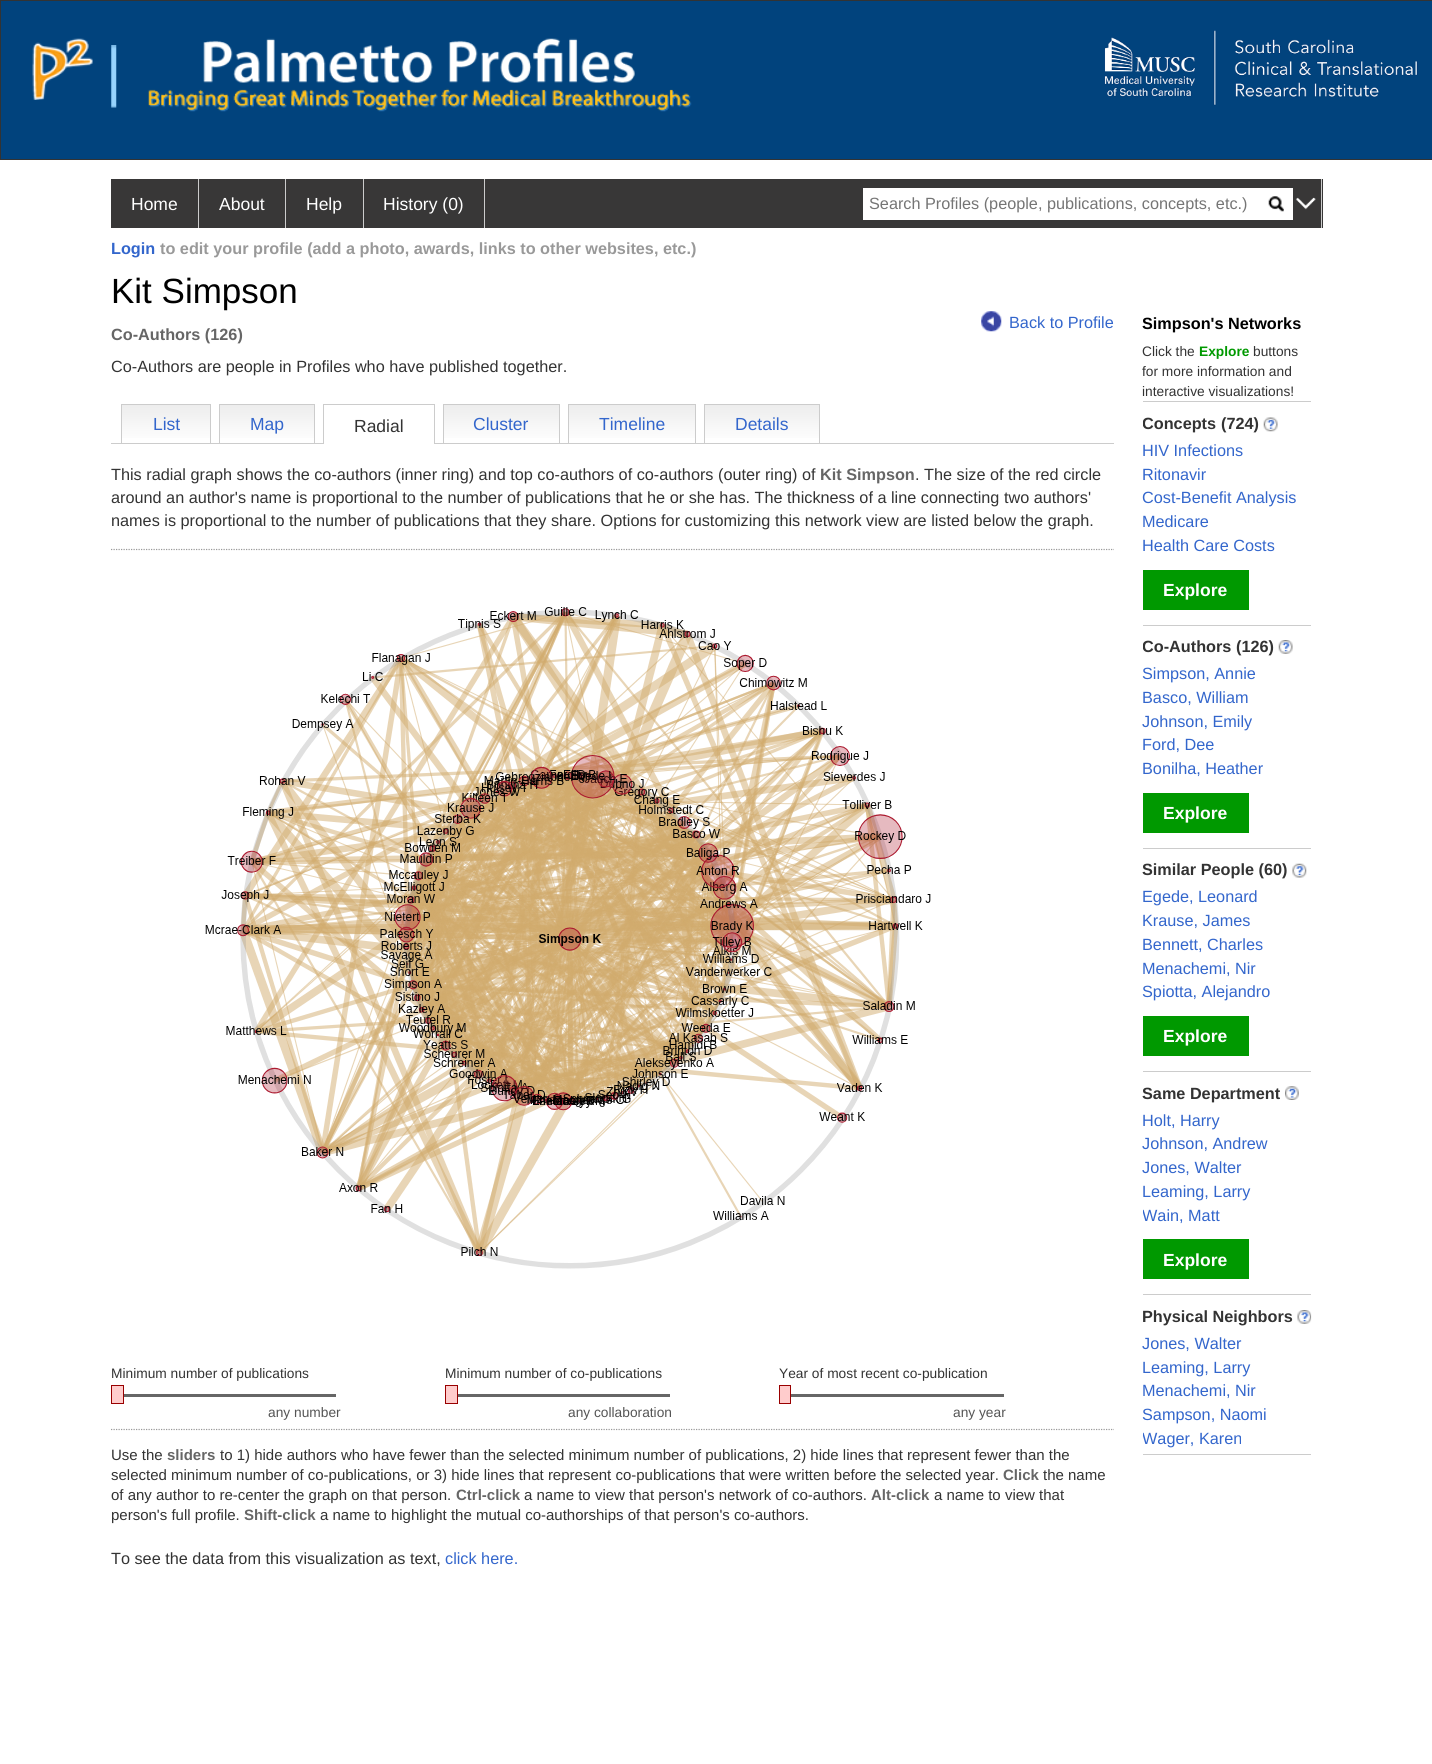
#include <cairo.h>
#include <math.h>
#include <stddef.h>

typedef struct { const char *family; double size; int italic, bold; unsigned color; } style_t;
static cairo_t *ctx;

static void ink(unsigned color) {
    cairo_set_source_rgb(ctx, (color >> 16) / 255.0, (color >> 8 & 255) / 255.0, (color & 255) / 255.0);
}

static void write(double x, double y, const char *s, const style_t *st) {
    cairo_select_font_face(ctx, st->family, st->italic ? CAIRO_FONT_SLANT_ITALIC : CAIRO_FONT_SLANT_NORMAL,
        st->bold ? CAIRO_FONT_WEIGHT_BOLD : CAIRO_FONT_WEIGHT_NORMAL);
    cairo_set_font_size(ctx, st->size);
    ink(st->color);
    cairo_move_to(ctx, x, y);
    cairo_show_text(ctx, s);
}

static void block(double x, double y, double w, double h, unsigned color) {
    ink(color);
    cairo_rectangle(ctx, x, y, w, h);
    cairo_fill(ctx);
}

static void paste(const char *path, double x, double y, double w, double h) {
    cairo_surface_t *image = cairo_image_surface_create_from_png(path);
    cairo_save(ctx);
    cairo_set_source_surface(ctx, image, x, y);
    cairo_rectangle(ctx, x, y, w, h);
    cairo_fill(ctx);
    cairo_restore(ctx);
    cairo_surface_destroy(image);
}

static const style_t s1 = {"Liberation Sans", 17.5, 0, 0, 0xffffff};
static const style_t s2 = {"Liberation Sans", 16.25, 0, 0, 0x757575};
static const style_t s3 = {"Liberation Sans", 16.25, 0, 1, 0x3366cc};
static const style_t s4 = {"Liberation Sans", 16.25, 0, 1, 0x999999};
static const style_t s5 = {"Liberation Sans", 35, 0, 0, 0x000000};
static const style_t s6 = {"Liberation Sans", 16.25, 0, 0, 0x3366cc};
static const style_t s7 = {"Liberation Sans", 16.25, 0, 1, 0x666666};
static const style_t s8 = {"Liberation Sans", 16.25, 0, 0, 0x333333};
static const style_t s9 = {"Liberation Sans", 17.5, 0, 0, 0x3366cc};
static const style_t s10 = {"Liberation Sans", 17.5, 0, 0, 0x333333};
static const style_t s11 = {"Liberation Sans", 13.75, 0, 0, 0x333333};
static const style_t s12 = {"Liberation Sans", 13.75, 0, 0, 0x555555};
static const style_t s13 = {"Liberation Sans", 15, 0, 0, 0x333333};
static const style_t s14 = {"Liberation Sans", 15, 0, 1, 0x666666};
static const style_t s15 = {"Liberation Sans", 16.25, 0, 1, 0x000000};
static const style_t s16 = {"Liberation Sans", 13.75, 0, 1, 0x009900};
static const style_t s17 = {"Liberation Sans", 16.25, 0, 1, 0x333333};
static const style_t s18 = {"Liberation Sans", 17.5, 0, 1, 0xffffff};

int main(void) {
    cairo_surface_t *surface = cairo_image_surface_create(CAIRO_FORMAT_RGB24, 1432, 1764);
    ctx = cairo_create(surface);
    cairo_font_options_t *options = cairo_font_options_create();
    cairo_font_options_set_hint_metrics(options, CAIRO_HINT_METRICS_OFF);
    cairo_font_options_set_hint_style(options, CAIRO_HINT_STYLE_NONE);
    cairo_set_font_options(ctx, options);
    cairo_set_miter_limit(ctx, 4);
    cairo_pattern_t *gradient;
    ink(0xffffff);
    cairo_paint(ctx);
    ink(0x01437d);
    cairo_rectangle(ctx, 0.5, 0.5, 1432, 159);
    cairo_fill_preserve(ctx);
    ink(0x333333);
    cairo_set_line_width(ctx, 1);
    cairo_stroke(ctx);
    paste("pic1.png", 32, 38, 61, 62);
    paste("pic2.png", 111, 45, 6, 63);
    paste("pic3.png", 203, 38, 432, 45);
    paste("pic4.png", 148, 88, 544, 24);
    paste("pic5.png", 1104, 30, 314, 76);
    block(111, 179, 1212, 49, 0x383737);
    block(198, 179, 1, 49, 0xcccccc);
    write(131, 210, "Home", &s1);
    block(285, 179, 1, 49, 0xcccccc);
    write(219, 210, "About", &s1);
    block(363, 179, 1, 49, 0xcccccc);
    write(306, 210, "Help", &s1);
    block(484, 179, 1, 49, 0xcccccc);
    write(383, 210, "History (0)", &s1);
    block(863, 188, 430, 32, 0xffffff);
    write(869, 209, "Search Profiles (people, publications, concepts, etc.)", &s2);
    paste("pic6.png", 1268, 196, 16, 16);
    block(1321, 179, 1, 49, 0xcccccc);
    paste("pic7.png", 1295, 197, 21, 13);
    write(111, 254, "Login", &s3);
    write(160, 254, "to edit your profile (add a photo, awards, links to other websites, etc.)", &s4);
    write(111, 303, "Kit Simpson", &s5);
    paste("pic8.png", 981, 311, 21, 21);
    write(1009, 328, "Back to Profile", &s6);
    write(111, 340, "Co-Authors (126)", &s7);
    write(111, 372, "Co-Authors are people in Profiles who have published together.", &s8);
    gradient = cairo_pattern_create_linear(166, 405, 166, 443);
    cairo_pattern_add_color_stop_rgba(gradient, 0, 0.929, 0.929, 0.929, 1);
    cairo_pattern_add_color_stop_rgba(gradient, 1, 1, 1, 1, 1);
    cairo_set_source(ctx, gradient);
    cairo_pattern_destroy(gradient);
    cairo_rectangle(ctx, 122, 405, 88, 33);
    cairo_fill(ctx);
    block(121, 404, 90, 1, 0xcccccc);
    block(210, 404, 1, 39, 0xcccccc);
    block(121, 404, 1, 39, 0xcccccc);
    write(153, 430, "List", &s9);
    gradient = cairo_pattern_create_linear(267, 405, 267, 443);
    cairo_pattern_add_color_stop_rgba(gradient, 0, 0.929, 0.929, 0.929, 1);
    cairo_pattern_add_color_stop_rgba(gradient, 1, 1, 1, 1, 1);
    cairo_set_source(ctx, gradient);
    cairo_pattern_destroy(gradient);
    cairo_rectangle(ctx, 220, 405, 94, 33);
    cairo_fill(ctx);
    block(219, 404, 96, 1, 0xcccccc);
    block(314, 404, 1, 39, 0xcccccc);
    block(219, 404, 1, 39, 0xcccccc);
    write(250, 430, "Map", &s9);
    block(111, 443, 1003, 1, 0xcccccc);
    block(324, 443, 110, 1, 0xffffff);
    block(323, 404, 112, 1, 0xcccccc);
    block(434, 404, 1, 40, 0xcccccc);
    block(323, 404, 1, 40, 0xcccccc);
    write(354, 432, "Radial", &s10);
    gradient = cairo_pattern_create_linear(501, 405, 501, 443);
    cairo_pattern_add_color_stop_rgba(gradient, 0, 0.929, 0.929, 0.929, 1);
    cairo_pattern_add_color_stop_rgba(gradient, 1, 1, 1, 1, 1);
    cairo_set_source(ctx, gradient);
    cairo_pattern_destroy(gradient);
    cairo_rectangle(ctx, 444, 405, 115, 33);
    cairo_fill(ctx);
    block(443, 404, 117, 1, 0xcccccc);
    block(559, 404, 1, 39, 0xcccccc);
    block(443, 404, 1, 39, 0xcccccc);
    write(473, 430, "Cluster", &s9);
    gradient = cairo_pattern_create_linear(632, 405, 632, 443);
    cairo_pattern_add_color_stop_rgba(gradient, 0, 0.929, 0.929, 0.929, 1);
    cairo_pattern_add_color_stop_rgba(gradient, 1, 1, 1, 1, 1);
    cairo_set_source(ctx, gradient);
    cairo_pattern_destroy(gradient);
    cairo_rectangle(ctx, 569, 405, 126, 33);
    cairo_fill(ctx);
    block(568, 404, 128, 1, 0xcccccc);
    block(695, 404, 1, 39, 0xcccccc);
    block(568, 404, 1, 39, 0xcccccc);
    write(599, 430, "Timeline", &s9);
    gradient = cairo_pattern_create_linear(762, 405, 762, 443);
    cairo_pattern_add_color_stop_rgba(gradient, 0, 0.929, 0.929, 0.929, 1);
    cairo_pattern_add_color_stop_rgba(gradient, 1, 1, 1, 1, 1);
    cairo_set_source(ctx, gradient);
    cairo_pattern_destroy(gradient);
    cairo_rectangle(ctx, 705, 405, 114, 33);
    cairo_fill(ctx);
    block(704, 404, 116, 1, 0xcccccc);
    block(819, 404, 1, 39, 0xcccccc);
    block(704, 404, 1, 39, 0xcccccc);
    write(735, 430, "Details", &s9);
    write(111, 480, "This radial graph shows the co-authors (inner ring) and top co-authors of co-authors (outer ring) of", &s8);
    write(820, 480, "Kit Simpson", &s7);
    write(915, 480, ". The size of the red circle", &s8);
    write(111, 503, "around an author's name is proportional to the number of publications that he or she has. The thickness of a line connecting two authors'", &s8);
    write(111, 526, "names is proportional to the number of publications that they share. Options for customizing this network view are listed below the graph.", &s8);
    cairo_new_path(ctx);
    cairo_move_to(ctx, 111, 549.5);
    cairo_line_to(ctx, 1114, 549.5);
    ink(0x999999);
    cairo_set_line_width(ctx, 1.2);
    cairo_set_dash(ctx, (double[]){1.25, 1.25}, 2, 0);
    cairo_stroke(ctx);
    paste("pic9.png", 205, 607, 726, 662);
    write(111, 1378, "Minimum number of publications", &s11);
    write(445, 1378, "Minimum number of co-publications", &s11);
    write(779, 1378, "Year of most recent co-publication", &s11);
    ink(0xffcccc);
    cairo_rectangle(ctx, 111.5, 1385.5, 12, 18);
    cairo_fill_preserve(ctx);
    ink(0x990000);
    cairo_set_line_width(ctx, 1);
    cairo_set_dash(ctx, NULL, 0, 0);
    cairo_stroke(ctx);
    block(124, 1394, 212, 3, 0x666666);
    ink(0xffcccc);
    cairo_rectangle(ctx, 445.5, 1385.5, 12, 18);
    cairo_fill_preserve(ctx);
    ink(0x990000);
    cairo_stroke(ctx);
    block(458, 1394, 212, 3, 0x666666);
    ink(0xffcccc);
    cairo_rectangle(ctx, 779.5, 1385.5, 11, 18);
    cairo_fill_preserve(ctx);
    ink(0x990000);
    cairo_stroke(ctx);
    block(791, 1394, 213, 3, 0x666666);
    write(268, 1417, "any number", &s12);
    write(568, 1417, "any collaboration", &s12);
    write(953, 1417, "any year", &s12);
    cairo_new_path(ctx);
    cairo_move_to(ctx, 111, 1429.5);
    cairo_line_to(ctx, 1114, 1429.5);
    ink(0x999999);
    cairo_set_line_width(ctx, 1.2);
    cairo_set_dash(ctx, (double[]){1.25, 1.25}, 2, 0);
    cairo_stroke(ctx);
    write(111, 1460, "Use the", &s13);
    write(167, 1460, "sliders", &s14);
    write(220, 1460, "to 1) hide authors who have fewer than the selected minimum number of publications, 2) hide lines that represent fewer than the", &s13);
    write(111, 1480, "selected minimum number of co-publications, or 3) hide lines that represent co-publications that were written before the selected year.", &s13);
    write(1003, 1480, "Click", &s14);
    write(1043, 1480, "the name", &s13);
    write(111, 1500, "of any author to re-center the graph on that person.", &s13);
    write(456, 1500, "Ctrl-click", &s14);
    write(524, 1500, "a name to view that person's network of co-authors.", &s13);
    write(871, 1500, "Alt-click", &s14);
    write(934, 1500, "a name to view that", &s13);
    write(111, 1520, "person's full profile.", &s13);
    write(244, 1520, "Shift-click", &s14);
    write(320, 1520, "a name to highlight the mutual co-authorships of that person's co-authors.", &s13);
    write(111, 1564, "To see the data from this visualization as text,", &s8);
    write(445, 1564, "click here.", &s6);
    write(1142, 329, "Simpson's Networks", &s15);
    write(1142, 356, "Click the", &s11);
    write(1199, 356, "Explore", &s16);
    write(1253, 356, "buttons", &s11);
    write(1142, 376, "for more information and", &s11);
    write(1142, 396, "interactive visualizations!", &s11);
    block(1143, 401, 168, 1, 0xcccccc);
    cairo_save(ctx);
    cairo_rectangle(ctx, 1143, 413, 168, 30);
    cairo_clip(ctx);
    write(1142, 429, "Concepts", &s17);
    cairo_restore(ctx);
    write(1221, 429, "(724)", &s17);
    paste("pic10.png", 1263, 417, 15, 15);
    write(1142, 456, "HIV Infections", &s6);
    write(1142, 480, "Ritonavir", &s6);
    write(1142, 503, "Cost-Benefit Analysis", &s6);
    write(1142, 527, "Medicare", &s6);
    write(1142, 551, "Health Care Costs", &s6);
    block(1143, 570, 106, 40, 0x009900);
    write(1163, 596, "Explore", &s18);
    block(1143, 625, 168, 1, 0xcccccc);
    cairo_save(ctx);
    cairo_rectangle(ctx, 1143, 636, 168, 29);
    cairo_clip(ctx);
    write(1142, 652, "Co-Authors", &s17);
    cairo_restore(ctx);
    write(1236, 652, "(126)", &s17);
    paste("pic11.png", 1278, 640, 15, 14);
    write(1142, 679, "Simpson, Annie", &s6);
    write(1142, 703, "Basco, William", &s6);
    write(1142, 727, "Johnson, Emily", &s6);
    write(1142, 750, "Ford, Dee", &s6);
    write(1142, 774, "Bonilha, Heather", &s6);
    block(1143, 793, 106, 40, 0x009900);
    write(1163, 819, "Explore", &s18);
    block(1143, 848, 168, 1, 0xcccccc);
    write(1142, 875, "Similar People (60)", &s17);
    paste("pic12.png", 1292, 863, 15, 15);
    write(1142, 902, "Egede, Leonard", &s6);
    write(1142, 926, "Krause, James", &s6);
    write(1142, 950, "Bennett, Charles", &s6);
    write(1142, 974, "Menachemi, Nir", &s6);
    write(1142, 997, "Spiotta, Alejandro", &s6);
    block(1143, 1016, 106, 40, 0x009900);
    write(1163, 1042, "Explore", &s18);
    block(1143, 1071, 168, 1, 0xcccccc);
    write(1142, 1099, "Same Department", &s17);
    paste("pic13.png", 1285, 1086, 14, 14);
    write(1142, 1126, "Holt, Harry", &s6);
    write(1142, 1149, "Johnson, Andrew", &s6);
    write(1142, 1173, "Jones, Walter", &s6);
    write(1142, 1197, "Leaming, Larry", &s6);
    cairo_save(ctx);
    cairo_rectangle(ctx, 1143, 1111, 168, 119);
    cairo_clip(ctx);
    write(1142, 1221, "Wain, Matt", &s6);
    cairo_restore(ctx);
    block(1143, 1239, 106, 40, 0x009900);
    write(1163, 1266, "Explore", &s18);
    block(1143, 1294, 168, 1, 0xcccccc);
    write(1142, 1322, "Physical Neighbors", &s17);
    paste("pic14.png", 1297, 1310, 15, 14);
    write(1142, 1349, "Jones, Walter", &s6);
    write(1142, 1373, "Leaming, Larry", &s6);
    write(1142, 1396, "Menachemi, Nir", &s6);
    write(1142, 1420, "Sampson, Naomi", &s6);
    cairo_save(ctx);
    cairo_rectangle(ctx, 1143, 1335, 168, 119);
    cairo_clip(ctx);
    write(1142, 1444, "Wager, Karen", &s6);
    cairo_restore(ctx);
    block(1143, 1454, 168, 1, 0xcccccc);
    cairo_surface_write_to_png(surface, "screenshot.png");
    cairo_font_options_destroy(options);
    cairo_destroy(ctx);
    cairo_surface_destroy(surface);
    return 0;
}
